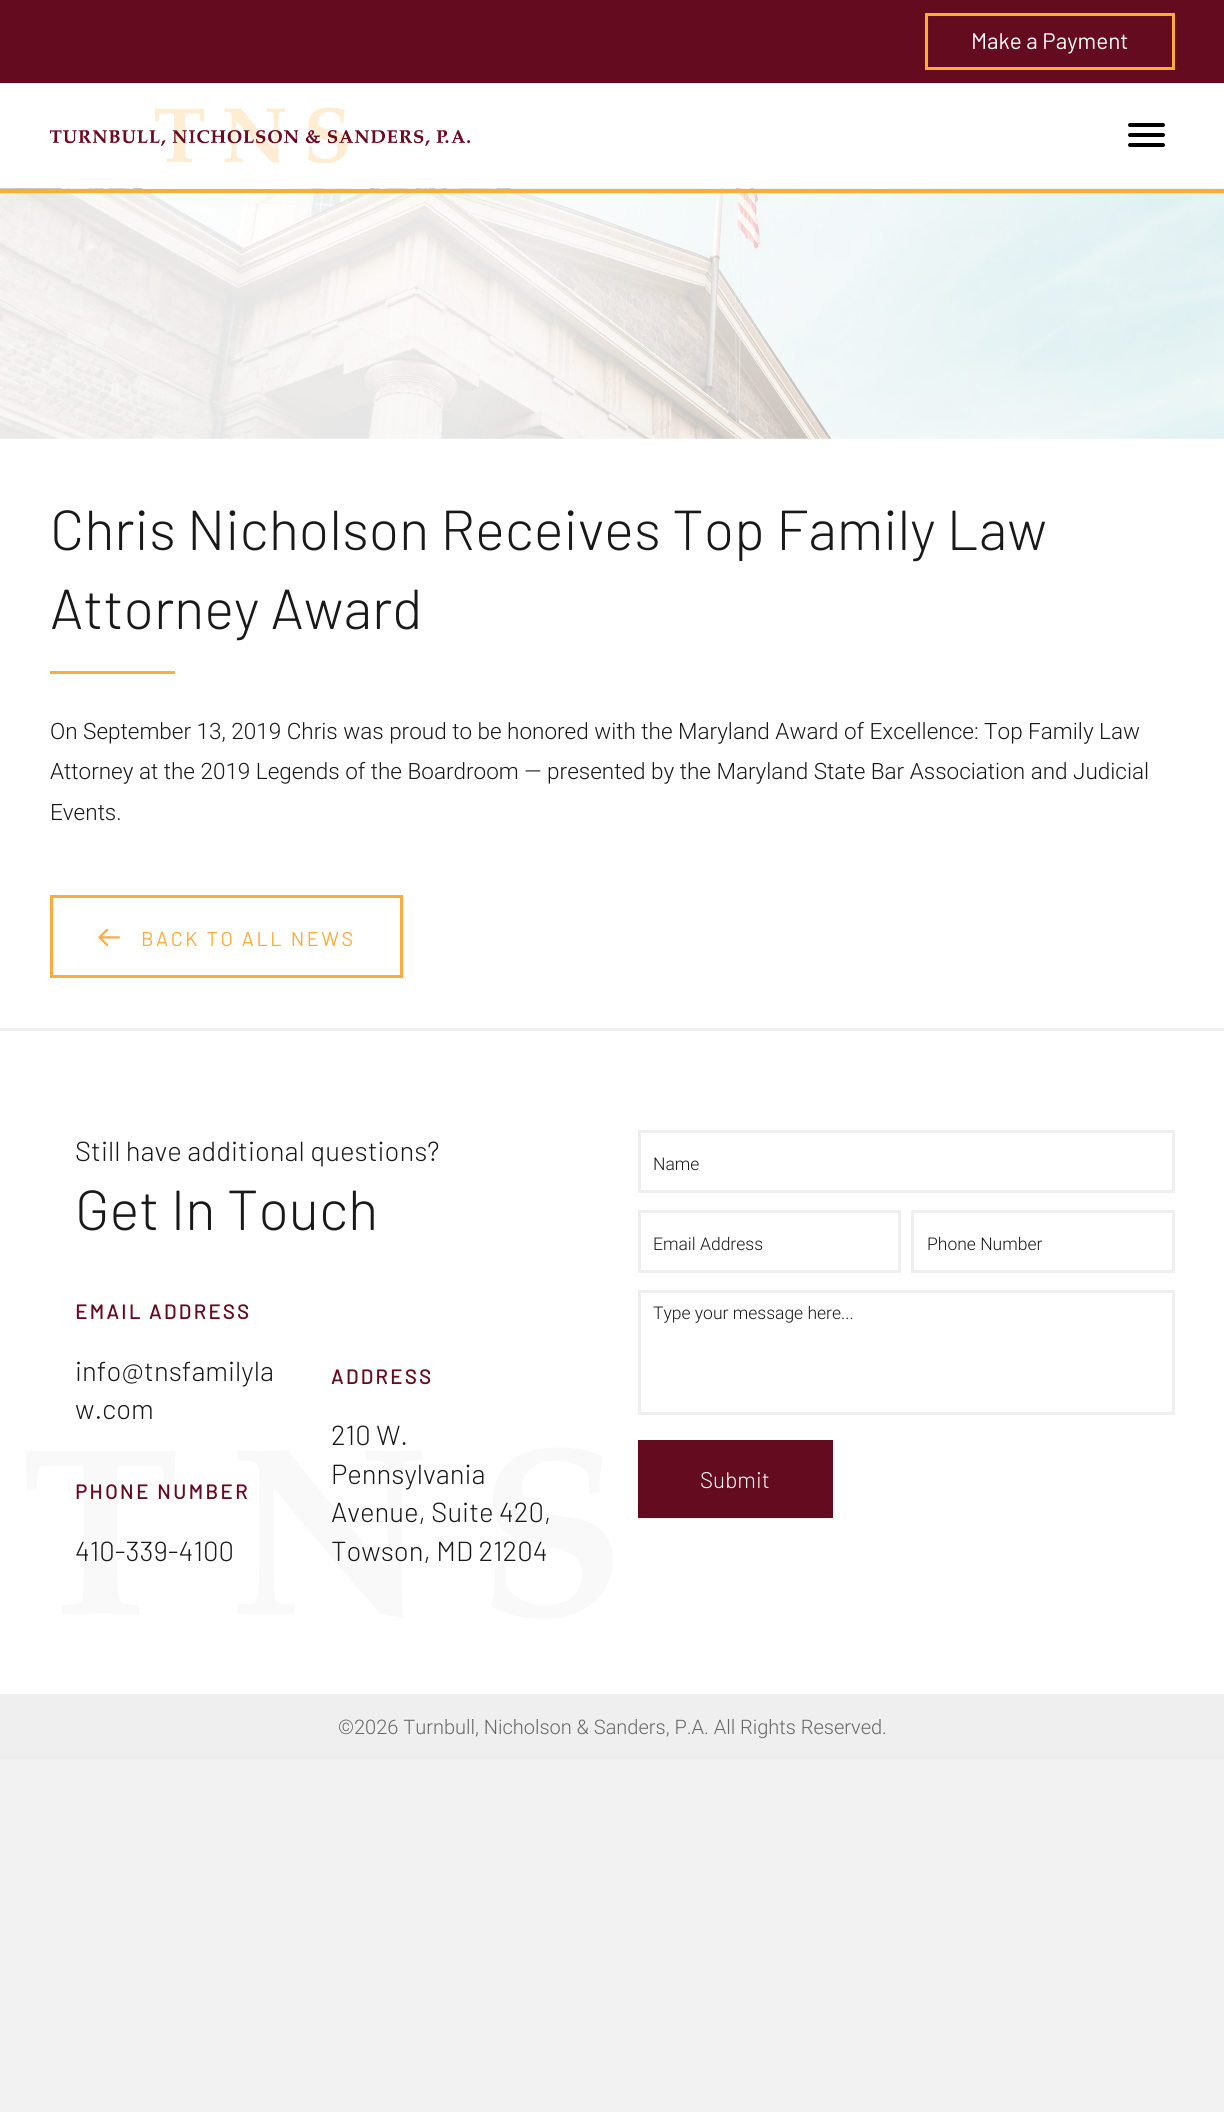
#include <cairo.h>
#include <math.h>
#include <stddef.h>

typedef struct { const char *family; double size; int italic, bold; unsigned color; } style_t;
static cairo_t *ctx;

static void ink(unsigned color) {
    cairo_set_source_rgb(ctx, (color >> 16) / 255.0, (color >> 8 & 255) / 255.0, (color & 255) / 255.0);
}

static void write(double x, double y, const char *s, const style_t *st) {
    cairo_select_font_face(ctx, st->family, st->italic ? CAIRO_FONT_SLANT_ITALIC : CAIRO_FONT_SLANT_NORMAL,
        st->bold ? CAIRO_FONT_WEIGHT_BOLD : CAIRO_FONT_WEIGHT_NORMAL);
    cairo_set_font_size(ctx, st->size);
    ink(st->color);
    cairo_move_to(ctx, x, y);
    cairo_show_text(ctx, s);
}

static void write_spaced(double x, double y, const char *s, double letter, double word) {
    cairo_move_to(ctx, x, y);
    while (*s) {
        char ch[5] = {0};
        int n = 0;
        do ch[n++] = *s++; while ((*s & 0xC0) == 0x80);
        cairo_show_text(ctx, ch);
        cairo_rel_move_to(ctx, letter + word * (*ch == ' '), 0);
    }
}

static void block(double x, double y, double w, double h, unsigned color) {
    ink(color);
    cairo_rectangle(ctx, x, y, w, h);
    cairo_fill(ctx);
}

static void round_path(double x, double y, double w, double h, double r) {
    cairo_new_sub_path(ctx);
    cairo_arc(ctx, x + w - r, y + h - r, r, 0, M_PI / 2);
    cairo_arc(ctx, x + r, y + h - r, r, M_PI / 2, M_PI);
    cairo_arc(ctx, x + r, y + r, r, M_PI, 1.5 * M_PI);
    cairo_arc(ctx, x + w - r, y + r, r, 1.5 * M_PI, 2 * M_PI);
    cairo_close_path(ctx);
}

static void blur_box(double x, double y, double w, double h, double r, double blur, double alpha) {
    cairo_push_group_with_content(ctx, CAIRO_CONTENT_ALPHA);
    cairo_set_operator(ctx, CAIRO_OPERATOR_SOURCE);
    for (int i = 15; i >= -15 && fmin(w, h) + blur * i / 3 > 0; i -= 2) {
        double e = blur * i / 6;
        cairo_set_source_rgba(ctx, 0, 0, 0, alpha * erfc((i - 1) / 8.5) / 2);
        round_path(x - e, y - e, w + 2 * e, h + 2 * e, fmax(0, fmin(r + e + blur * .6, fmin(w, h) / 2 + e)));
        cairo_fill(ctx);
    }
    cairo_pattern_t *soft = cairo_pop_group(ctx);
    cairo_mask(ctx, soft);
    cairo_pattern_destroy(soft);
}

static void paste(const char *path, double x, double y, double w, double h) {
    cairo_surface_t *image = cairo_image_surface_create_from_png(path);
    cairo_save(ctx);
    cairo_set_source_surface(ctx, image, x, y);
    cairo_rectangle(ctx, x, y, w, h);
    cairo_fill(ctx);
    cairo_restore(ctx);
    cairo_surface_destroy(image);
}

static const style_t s1 = {"Barlow", 22.5, 0, 0, 0xffffff};
static const style_t s2 = {"Barlow Light", 56.25, 0, 0, 0x191919};
static const style_t s3 = {"Roboto Light", 22.5, 0, 0, 0x191919};
static const style_t s4 = {"Barlow Light", 27.5, 0, 0, 0x191919};
static const style_t s5 = {"Roboto Light", 17.5, 0, 0, 0x191919};
static const style_t s6 = {"Barlow Light", 22.5, 0, 0, 0xffffff};
static const style_t s7 = {"Roboto Light", 20, 0, 0, 0x686868};

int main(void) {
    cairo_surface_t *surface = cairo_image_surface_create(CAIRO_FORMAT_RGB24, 1224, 2112);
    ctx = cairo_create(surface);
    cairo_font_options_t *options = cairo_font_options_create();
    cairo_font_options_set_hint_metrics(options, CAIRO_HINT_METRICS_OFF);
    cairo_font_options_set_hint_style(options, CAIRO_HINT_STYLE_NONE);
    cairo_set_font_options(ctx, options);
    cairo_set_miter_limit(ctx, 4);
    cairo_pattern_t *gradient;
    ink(0xf2f2f2);
    cairo_paint(ctx);
    block(0, 0, 1224, 83, 0x640b20);
    cairo_rectangle(ctx, 926.5, 14.5, 247, 54);
    ink(0xfbac3a);
    cairo_set_line_width(ctx, 3);
    cairo_stroke(ctx);
    write(971, 49, "Make a Payment", &s1);
    block(0, 83, 1224, 106, 0xffffff);
    paste("pic1.png", 50, 107, 420, 57);
    ink(0x000000);
    round_path(1128, 133, 37, 4, 2);
    cairo_fill(ctx);
    round_path(1128, 123, 37, 4, 2);
    cairo_fill(ctx);
    round_path(1128, 143, 37, 4, 2);
    cairo_fill(ctx);
    paste("pic2.png", 0, 188, 1224, 251);
    block(0, 189, 1224, 4, 0xfbac3a);
    gradient = cairo_pattern_create_linear(62, 59, 1163, 572);
    cairo_pattern_add_color_stop_rgba(gradient, 0.43, 1, 1, 1, 0.9);
    cairo_pattern_add_color_stop_rgba(gradient, 1, 1, 1, 1, 0.5);
    cairo_set_source(ctx, gradient);
    cairo_pattern_destroy(gradient);
    cairo_rectangle(ctx, 0, 193, 1224, 246);
    cairo_fill(ctx);
    block(0, 439, 1224, 589, 0xffffff);
    write(50, 550, "Chris Nicholson Receives Top Family Law", &s2);
    write(50, 629, "Attorney Award", &s2);
    block(50, 671, 125, 3, 0xfbac3a);
    write(50, 739, "On September 13, 2019 Chris was proud to be honored with the Maryland Award of Excellence: Top Family Law", &s3);
    write(50, 779, "Attorney at the 2019 Legends of the Boardroom — presented by the Maryland State Bar Association and Judicial", &s3);
    write(50, 820, "Events.", &s3);
    cairo_rectangle(ctx, 51.5, 896.5, 350, 80);
    ink(0xfbac3a);
    cairo_stroke(ctx);
    paste("pic3.png", 98, 928, 23, 18);
    cairo_select_font_face(ctx, "Barlow", CAIRO_FONT_SLANT_NORMAL, CAIRO_FONT_WEIGHT_NORMAL);
    cairo_set_font_size(ctx, 20);
    write_spaced(141, 946, "BACK TO ALL NEWS", 2.5, 0);
    block(0, 1031, 1224, 663, 0xffffff);
    block(0, 1028, 1224, 3, 0xefefef);
    paste("pic4.png", 25, 1447, 588, 172);
    write(75, 1161, "Still have additional questions?", &s4);
    write(75, 1230, "Get In Touch", &s2);
    cairo_select_font_face(ctx, "Barlow", CAIRO_FONT_SLANT_NORMAL, CAIRO_FONT_WEIGHT_BOLD);
    cairo_set_font_size(ctx, 20);
    ink(0x640b20);
    write_spaced(75, 1319, "EMAIL ADDRESS", 2.5, 0);
    write(75, 1381, "info@tnsfamilyla", &s4);
    write(75, 1419, "w.com", &s4);
    cairo_select_font_face(ctx, "Barlow", CAIRO_FONT_SLANT_NORMAL, CAIRO_FONT_WEIGHT_BOLD);
    cairo_set_font_size(ctx, 20);
    ink(0x640b20);
    write_spaced(75, 1499, "PHONE NUMBER", 2.5, 0);
    write(75, 1561, "410-339-4100", &s4);
    cairo_select_font_face(ctx, "Barlow", CAIRO_FONT_SLANT_NORMAL, CAIRO_FONT_WEIGHT_BOLD);
    cairo_set_font_size(ctx, 20);
    ink(0x640b20);
    write_spaced(331, 1384, "ADDRESS", 2.5, 0);
    write(331, 1445, "210 W.", &s4);
    write(331, 1484, "Pennsylvania", &s4);
    write(331, 1522, "Avenue, Suite 420,", &s4);
    write(331, 1561, "Towson, MD 21204", &s4);
    cairo_rectangle(ctx, 639.5, 1131.5, 534, 60);
    ink(0xefefef);
    cairo_stroke(ctx);
    write(653, 1170, "Name", &s5);
    cairo_rectangle(ctx, 639.5, 1211.5, 260, 60);
    ink(0xefefef);
    cairo_stroke(ctx);
    write(653, 1250, "Email Address", &s5);
    cairo_rectangle(ctx, 912.5, 1211.5, 261, 60);
    ink(0xefefef);
    cairo_stroke(ctx);
    write(927, 1250, "Phone Number", &s5);
    cairo_rectangle(ctx, 639.5, 1291.5, 534, 122);
    ink(0xefefef);
    cairo_stroke(ctx);
    write(653, 1319, "Type your message here...", &s5);
    ink(0xeeeeee);
    blur_box(638, 1441, 195, 78, 0, 0.5, 1);
    block(638, 1440, 195, 78, 0x640b20);
    write(700, 1488, "Submit", &s6);
    block(0, 1694, 1224, 65, 0xefefef);
    write(338, 1734, "©2026 Turnbull, Nicholson & Sanders, P.A. All Rights Reserved.", &s7);
    cairo_surface_write_to_png(surface, "screenshot.png");
    cairo_font_options_destroy(options);
    cairo_destroy(ctx);
    cairo_surface_destroy(surface);
    return 0;
}
